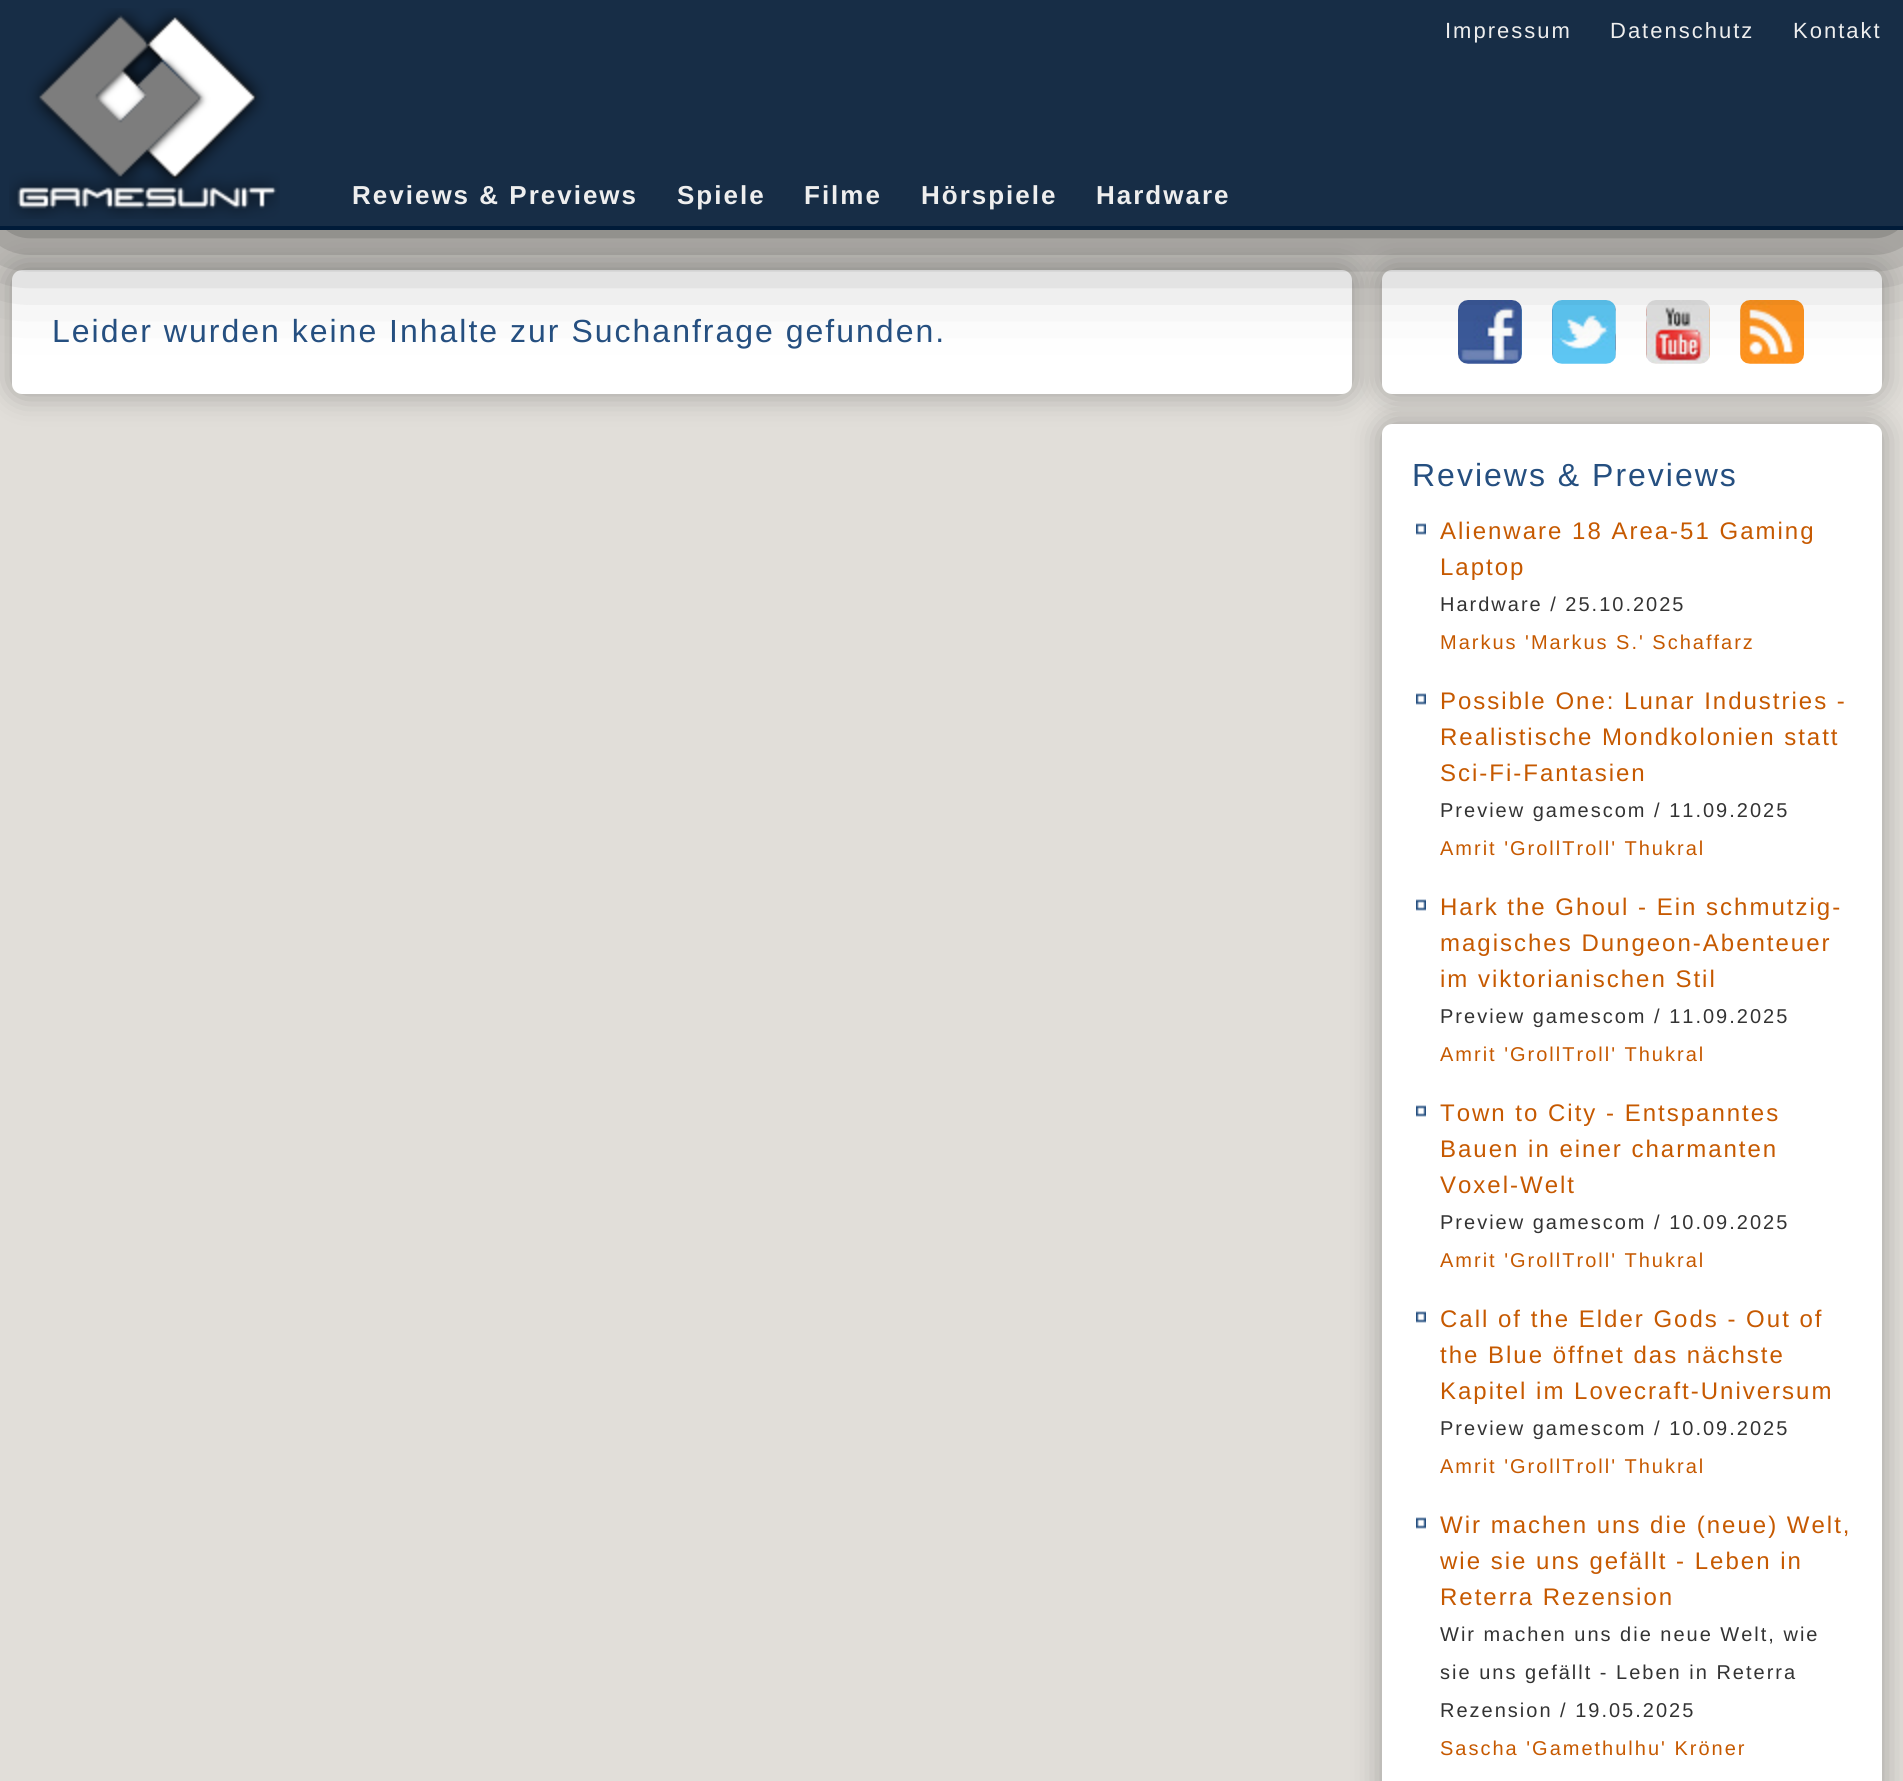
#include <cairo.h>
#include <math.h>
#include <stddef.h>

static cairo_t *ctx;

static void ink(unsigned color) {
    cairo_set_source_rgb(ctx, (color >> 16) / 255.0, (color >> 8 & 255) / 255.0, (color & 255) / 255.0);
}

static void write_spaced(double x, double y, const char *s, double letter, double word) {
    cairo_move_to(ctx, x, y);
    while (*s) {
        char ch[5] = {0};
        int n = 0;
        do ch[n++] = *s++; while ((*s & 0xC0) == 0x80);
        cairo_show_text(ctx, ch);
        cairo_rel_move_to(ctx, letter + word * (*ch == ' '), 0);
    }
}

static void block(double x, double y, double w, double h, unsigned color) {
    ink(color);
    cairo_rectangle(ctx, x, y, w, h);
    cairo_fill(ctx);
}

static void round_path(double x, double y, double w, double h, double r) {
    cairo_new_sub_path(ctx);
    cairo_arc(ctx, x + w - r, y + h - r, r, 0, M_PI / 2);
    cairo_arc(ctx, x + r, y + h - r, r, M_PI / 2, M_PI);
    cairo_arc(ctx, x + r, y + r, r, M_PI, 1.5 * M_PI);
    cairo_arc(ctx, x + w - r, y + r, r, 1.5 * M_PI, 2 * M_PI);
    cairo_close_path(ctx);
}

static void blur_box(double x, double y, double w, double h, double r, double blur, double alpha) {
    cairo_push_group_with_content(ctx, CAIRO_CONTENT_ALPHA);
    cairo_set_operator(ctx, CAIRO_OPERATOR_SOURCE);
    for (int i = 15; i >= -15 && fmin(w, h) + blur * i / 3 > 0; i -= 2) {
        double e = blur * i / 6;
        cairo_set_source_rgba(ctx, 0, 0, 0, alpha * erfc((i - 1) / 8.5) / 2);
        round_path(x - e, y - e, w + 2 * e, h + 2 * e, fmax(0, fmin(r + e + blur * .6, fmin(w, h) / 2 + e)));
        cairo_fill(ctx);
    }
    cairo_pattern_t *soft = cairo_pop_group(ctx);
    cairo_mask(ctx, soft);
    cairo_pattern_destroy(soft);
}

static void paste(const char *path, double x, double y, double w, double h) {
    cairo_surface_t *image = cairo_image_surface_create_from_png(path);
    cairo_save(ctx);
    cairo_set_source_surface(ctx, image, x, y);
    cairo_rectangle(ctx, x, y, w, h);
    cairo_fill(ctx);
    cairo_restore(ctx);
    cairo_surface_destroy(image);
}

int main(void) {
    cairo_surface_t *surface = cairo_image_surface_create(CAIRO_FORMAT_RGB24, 1903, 1781);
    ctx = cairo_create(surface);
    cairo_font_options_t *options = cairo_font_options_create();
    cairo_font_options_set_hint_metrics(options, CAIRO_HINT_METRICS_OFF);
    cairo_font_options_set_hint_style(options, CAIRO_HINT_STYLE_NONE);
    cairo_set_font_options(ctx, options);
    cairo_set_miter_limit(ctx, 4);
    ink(0xe1ded9);
    cairo_paint(ctx);
    ink(0x000000);
    blur_box(12, 270, 1340, 124, 10, 15, 0.3);
    ink(0xffffff);
    round_path(12, 270, 1340, 124, 10);
    cairo_fill(ctx);
    ink(0x000000);
    blur_box(1382, 270, 500, 124, 10, 15, 0.3);
    ink(0xffffff);
    round_path(1382, 270, 500, 124, 10);
    cairo_fill(ctx);
    paste("pic2.png", 1458, 300, 64, 64);
    paste("pic3.png", 1552, 300, 64, 64);
    paste("pic4.png", 1646, 300, 64, 64);
    paste("pic5.png", 1740, 300, 64, 64);
    ink(0x000000);
    blur_box(0, 0, 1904, 230, 0, 50, 0.7);
    block(0, 0, 1903, 226, 0x172d46);
    block(0, 226, 1903, 4, 0x001b39);
    paste("pic1.png", 9, 8, 271, 211);
    cairo_select_font_face(ctx, "Liberation Sans", CAIRO_FONT_SLANT_NORMAL, CAIRO_FONT_WEIGHT_NORMAL);
    cairo_set_font_size(ctx, 22);
    ink(0xeeeeee);
    write_spaced(1445, 38, "Impressum", 2, 0);
    write_spaced(1610, 38, "Datenschutz", 2, 0);
    write_spaced(1793, 38, "Kontakt", 2, 0);
    cairo_select_font_face(ctx, "Liberation Sans", CAIRO_FONT_SLANT_NORMAL, CAIRO_FONT_WEIGHT_BOLD);
    cairo_set_font_size(ctx, 26);
    write_spaced(352, 204, "Reviews & Previews", 2, 0);
    write_spaced(677, 204, "Spiele", 2, 0);
    write_spaced(804, 204, "Filme", 2, 0);
    write_spaced(921, 204, "Hörspiele", 2, 0);
    write_spaced(1096, 204, "Hardware", 2, 0);
    cairo_select_font_face(ctx, "Liberation Sans", CAIRO_FONT_SLANT_NORMAL, CAIRO_FONT_WEIGHT_NORMAL);
    cairo_set_font_size(ctx, 32);
    ink(0x254f80);
    write_spaced(52, 342, "Leider wurden keine Inhalte zur Suchanfrage gefunden.", 2, 0);
    ink(0x000000);
    blur_box(1382, 424, 500, 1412, 10, 15, 0.3);
    ink(0xffffff);
    round_path(1382, 424, 500, 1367, 10);
    cairo_fill(ctx);
    ink(0x254f80);
    write_spaced(1412, 486, "Reviews & Previews", 2, 0);
    paste("pic6.png", 1416, 523, 10, 12);
    cairo_set_font_size(ctx, 24);
    ink(0xc65900);
    write_spaced(1440, 539, "Alienware 18 Area-51 Gaming", 2, 0);
    write_spaced(1440, 575, "Laptop", 2, 0);
    cairo_set_font_size(ctx, 20);
    ink(0x333333);
    write_spaced(1440, 611, "Hardware / 25.10.2025", 2, 0);
    ink(0xc65900);
    write_spaced(1440, 649, "Markus 'Markus S.' Schaffarz", 2, 0);
    paste("pic6.png", 1416, 693, 10, 12);
    cairo_set_font_size(ctx, 24);
    write_spaced(1440, 709, "Possible One: Lunar Industries -", 2, 0);
    write_spaced(1440, 745, "Realistische Mondkolonien statt", 2, 0);
    write_spaced(1440, 781, "Sci-Fi-Fantasien", 2, 0);
    cairo_set_font_size(ctx, 20);
    ink(0x333333);
    write_spaced(1440, 817, "Preview gamescom / 11.09.2025", 2, 0);
    ink(0xc65900);
    write_spaced(1440, 855, "Amrit 'GrollTroll' Thukral", 2, 0);
    paste("pic6.png", 1416, 899, 10, 12);
    cairo_set_font_size(ctx, 24);
    write_spaced(1440, 915, "Hark the Ghoul - Ein schmutzig-", 2, 0);
    write_spaced(1440, 951, "magisches Dungeon-Abenteuer", 2, 0);
    write_spaced(1440, 987, "im viktorianischen Stil", 2, 0);
    cairo_set_font_size(ctx, 20);
    ink(0x333333);
    write_spaced(1440, 1023, "Preview gamescom / 11.09.2025", 2, 0);
    ink(0xc65900);
    write_spaced(1440, 1061, "Amrit 'GrollTroll' Thukral", 2, 0);
    paste("pic6.png", 1416, 1105, 10, 12);
    cairo_set_font_size(ctx, 24);
    write_spaced(1440, 1121, "Town to City - Entspanntes", 2, 0);
    write_spaced(1440, 1157, "Bauen in einer charmanten", 2, 0);
    write_spaced(1440, 1193, "Voxel-Welt", 2, 0);
    cairo_set_font_size(ctx, 20);
    ink(0x333333);
    write_spaced(1440, 1229, "Preview gamescom / 10.09.2025", 2, 0);
    ink(0xc65900);
    write_spaced(1440, 1267, "Amrit 'GrollTroll' Thukral", 2, 0);
    paste("pic6.png", 1416, 1311, 10, 12);
    cairo_set_font_size(ctx, 24);
    write_spaced(1440, 1327, "Call of the Elder Gods - Out of", 2, 0);
    write_spaced(1440, 1363, "the Blue öffnet das nächste", 2, 0);
    write_spaced(1440, 1399, "Kapitel im Lovecraft-Universum", 2, 0);
    cairo_set_font_size(ctx, 20);
    ink(0x333333);
    write_spaced(1440, 1435, "Preview gamescom / 10.09.2025", 2, 0);
    ink(0xc65900);
    write_spaced(1440, 1473, "Amrit 'GrollTroll' Thukral", 2, 0);
    paste("pic6.png", 1416, 1517, 10, 12);
    cairo_set_font_size(ctx, 24);
    write_spaced(1440, 1533, "Wir machen uns die (neue) Welt,", 2, 0);
    write_spaced(1440, 1569, "wie sie uns gefällt - Leben in", 2, 0);
    write_spaced(1440, 1605, "Reterra Rezension", 2, 0);
    cairo_set_font_size(ctx, 20);
    ink(0x333333);
    write_spaced(1440, 1641, "Wir machen uns die neue Welt, wie", 2, 0);
    write_spaced(1440, 1679, "sie uns gefällt - Leben in Reterra", 2, 0);
    write_spaced(1440, 1717, "Rezension / 19.05.2025", 2, 0);
    ink(0xc65900);
    write_spaced(1440, 1755, "Sascha 'Gamethulhu' Kröner", 2, 0);
    cairo_surface_write_to_png(surface, "screenshot.png");
    cairo_font_options_destroy(options);
    cairo_destroy(ctx);
    cairo_surface_destroy(surface);
    return 0;
}
